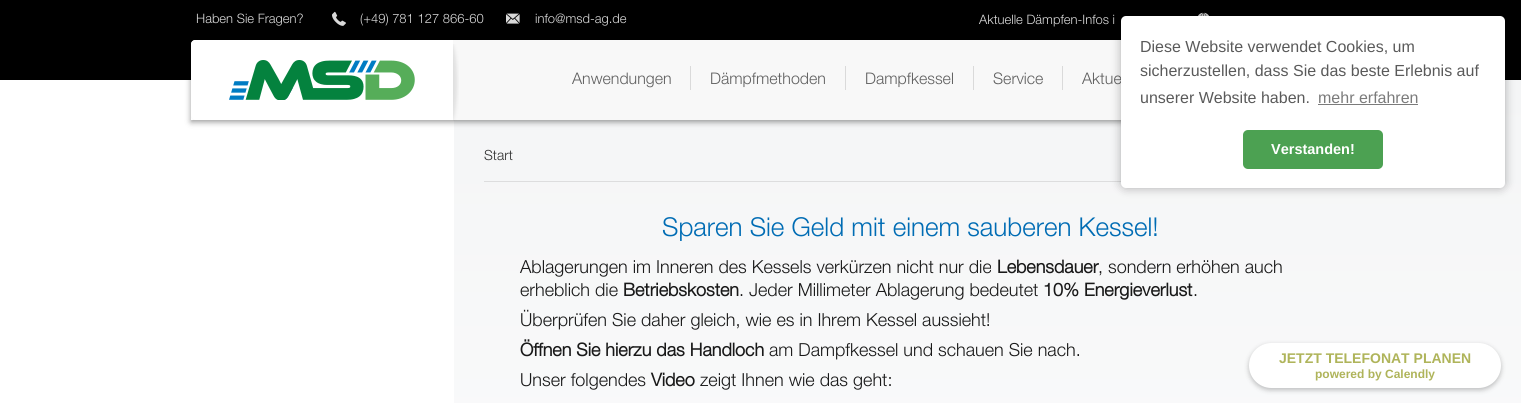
#include <cairo.h>
#include <math.h>
#include <stddef.h>

typedef struct { const char *family; double size; int italic, bold; unsigned color; } style_t;
static cairo_t *ctx;

static void ink(unsigned color) {
    cairo_set_source_rgb(ctx, (color >> 16) / 255.0, (color >> 8 & 255) / 255.0, (color & 255) / 255.0);
}

static void write(double x, double y, const char *s, const style_t *st) {
    cairo_select_font_face(ctx, st->family, st->italic ? CAIRO_FONT_SLANT_ITALIC : CAIRO_FONT_SLANT_NORMAL,
        st->bold ? CAIRO_FONT_WEIGHT_BOLD : CAIRO_FONT_WEIGHT_NORMAL);
    cairo_set_font_size(ctx, st->size);
    ink(st->color);
    cairo_move_to(ctx, x, y);
    cairo_show_text(ctx, s);
}

static void block(double x, double y, double w, double h, unsigned color) {
    ink(color);
    cairo_rectangle(ctx, x, y, w, h);
    cairo_fill(ctx);
}

static void round_path(double x, double y, double w, double h, double r) {
    cairo_new_sub_path(ctx);
    cairo_arc(ctx, x + w - r, y + h - r, r, 0, M_PI / 2);
    cairo_arc(ctx, x + r, y + h - r, r, M_PI / 2, M_PI);
    cairo_arc(ctx, x + r, y + r, r, M_PI, 1.5 * M_PI);
    cairo_arc(ctx, x + w - r, y + r, r, 1.5 * M_PI, 2 * M_PI);
    cairo_close_path(ctx);
}

static void blur_box(double x, double y, double w, double h, double r, double blur, double alpha) {
    cairo_push_group_with_content(ctx, CAIRO_CONTENT_ALPHA);
    cairo_set_operator(ctx, CAIRO_OPERATOR_SOURCE);
    for (int i = 15; i >= -15 && fmin(w, h) + blur * i / 3 > 0; i -= 2) {
        double e = blur * i / 6;
        cairo_set_source_rgba(ctx, 0, 0, 0, alpha * erfc((i - 1) / 8.5) / 2);
        round_path(x - e, y - e, w + 2 * e, h + 2 * e, fmax(0, fmin(r + e + blur * .6, fmin(w, h) / 2 + e)));
        cairo_fill(ctx);
    }
    cairo_pattern_t *soft = cairo_pop_group(ctx);
    cairo_mask(ctx, soft);
    cairo_pattern_destroy(soft);
}

static void paste(const char *path, double x, double y, double w, double h) {
    cairo_surface_t *image = cairo_image_surface_create_from_png(path);
    cairo_save(ctx);
    cairo_set_source_surface(ctx, image, x, y);
    cairo_rectangle(ctx, x, y, w, h);
    cairo_fill(ctx);
    cairo_restore(ctx);
    cairo_surface_destroy(image);
}

static const style_t s1 = {"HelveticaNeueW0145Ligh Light", 13, 0, 0, 0xd9d9d9};
static const style_t s2 = {"HelveticaNeueW0145Ligh Light", 16, 0, 0, 0x616161};
static const style_t s3 = {"HelveticaNeueW0145Ligh Light", 14, 0, 0, 0x313131};
static const style_t s4 = {"HelveticaNeueW0145Ligh Light", 26, 0, 0, 0x006cb4};
static const style_t s5 = {"HelveticaNeueW0145Ligh Light", 18, 0, 0, 0x191919};
static const style_t s6 = {"HelveticaNeueW0145Ligh", 18, 0, 1, 0x191919};
static const style_t s7 = {"Liberation Sans", 16, 0, 0, 0x5a5a5a};
static const style_t s8 = {"Liberation Sans", 16, 0, 0, 0x7b7b7b};
static const style_t s9 = {"Liberation Sans", 14.5, 0, 1, 0xffffff};
static const style_t s10 = {"Liberation Sans", 14, 0, 1, 0xafb45a};
static const style_t s11 = {"Liberation Sans", 12, 0, 1, 0xafb45a};

int main(void) {
    cairo_surface_t *surface = cairo_image_surface_create(CAIRO_FORMAT_RGB24, 1521, 403);
    ctx = cairo_create(surface);
    cairo_font_options_t *options = cairo_font_options_create();
    cairo_font_options_set_hint_metrics(options, CAIRO_HINT_METRICS_OFF);
    cairo_font_options_set_hint_style(options, CAIRO_HINT_STYLE_NONE);
    cairo_set_font_options(ctx, options);
    cairo_set_miter_limit(ctx, 4);
    cairo_pattern_t *gradient;
    ink(0xffffff);
    cairo_paint(ctx);
    block(0, 0, 1521, 80, 0x000000);
    write(196, 23, "Haben Sie Fragen?", &s1);
    paste("pic1.png", 332, 11, 14, 15);
    write(360, 23, "(+49) 781 127 866-60", &s1);
    paste("pic2.png", 506, 13, 14, 11);
    write(535, 23, "info@msd-ag.de", &s1);
    write(979, 24, "Aktuelle Dämpfen-Infos i", &s1);
    paste("pic3.png", 1198, 12, 11, 4);
    gradient = cairo_pattern_create_linear(1390, 80, 1390, 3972);
    cairo_pattern_add_color_stop_rgba(gradient, 0, 0.957, 0.961, 0.965, 1);
    cairo_pattern_add_color_stop_rgba(gradient, 0.2, 1, 1, 1, 1);
    cairo_set_source(ctx, gradient);
    cairo_pattern_destroy(gradient);
    cairo_rectangle(ctx, 454, 80, 1067, 323);
    cairo_fill(ctx);
    ink(0xf8f8f8);
    round_path(191, 40, 1140, 80, 4);
    cairo_fill(ctx);
    cairo_save(ctx);
    cairo_set_fill_rule(ctx, CAIRO_FILL_RULE_EVEN_ODD);
    cairo_new_path(ctx);
    cairo_move_to(ctx, 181, 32);
    cairo_line_to(ctx, 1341, 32);
    cairo_line_to(ctx, 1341, 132);
    cairo_line_to(ctx, 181, 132);
    cairo_close_path(ctx);
    cairo_move_to(ctx, 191, 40);
    cairo_line_to(ctx, 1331, 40);
    cairo_line_to(ctx, 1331, 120);
    cairo_line_to(ctx, 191, 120);
    cairo_close_path(ctx);
    cairo_clip(ctx);
    ink(0x000000);
    blur_box(191, 42, 1140, 80, 0, 3, 0.4);
    cairo_restore(ctx);
    ink(0xffffff);
    cairo_new_path(ctx);
    cairo_move_to(ctx, 196, 40);
    cairo_line_to(ctx, 453, 40);
    cairo_line_to(ctx, 453, 120);
    cairo_line_to(ctx, 196, 120);
    cairo_curve_to(ctx, 193, 120, 191, 118, 191, 115);
    cairo_line_to(ctx, 191, 45);
    cairo_curve_to(ctx, 191, 42, 193, 40, 196, 40);
    cairo_close_path(ctx);
    cairo_fill(ctx);
    paste("pic4.png", 229, 60, 186, 40);
    paste("pic5.png", 453, 44, 6, 77);
    block(690, 66, 1, 24, 0xdadada);
    write(572, 84, "Anwendungen", &s2);
    block(845, 66, 1, 24, 0xdadada);
    write(710, 84, "Dämpfmethoden", &s2);
    block(973, 66, 1, 24, 0xdadada);
    write(865, 84, "Dampfkessel", &s2);
    block(1062, 66, 1, 24, 0xdadada);
    write(993, 84, "Service", &s2);
    write(1082, 84, "Aktue", &s2);
    block(484, 181, 637, 1, 0xddddde);
    write(484, 160, "Start", &s3);
    write(662, 236, "Sparen Sie Geld mit einem sauberen Kessel!", &s4);
    write(520, 273, "Ablagerungen im Inneren des Kessels verkürzen nicht nur die", &s5);
    write(997, 273, "Lebensdauer", &s6);
    write(1098, 273, ", sondern erhöhen auch", &s5);
    write(520, 296, "erheblich die", &s5);
    write(623, 296, "Betriebskosten", &s6);
    write(739, 296, ". Jeder Millimeter Ablagerung bedeutet", &s5);
    write(1043, 296, "10% Energieverlust", &s6);
    write(1193, 296, ".", &s5);
    write(520, 326, "Überprüfen Sie daher gleich, wie es in Ihrem Kessel aussieht!", &s5);
    write(520, 356, "Öffnen Sie hierzu das Handloch", &s6);
    write(769, 356, "am Dampfkessel und schauen Sie nach.", &s5);
    write(520, 386, "Unser folgendes", &s5);
    write(651, 386, "Video", &s6);
    write(700, 386, "zeigt Ihnen wie das geht:", &s5);
    ink(0x000000);
    blur_box(1121, 16, 384, 172, 5, 5, 0.3);
    ink(0xffffff);
    round_path(1121, 16, 384, 172, 5);
    cairo_fill(ctx);
    write(1140, 52, "Diese Website verwendet Cookies, um", &s7);
    write(1140, 76, "sicherzustellen, dass Sie das beste Erlebnis auf", &s7);
    write(1140, 103, "unserer Website haben.", &s7);
    write(1318, 103, "mehr erfahren", &s8);
    block(1318, 104, 100, 1, 0x7b7b7b);
    ink(0x4ca152);
    round_path(1243, 130, 140, 39, 5);
    cairo_fill(ctx);
    write(1271, 154, "Verstanden!", &s9);
    ink(0x000000);
    blur_box(1249, 345, 252, 45, 22.5, 2.5, 0.25);
    ink(0xffffff);
    round_path(1249, 343, 252, 45, 22.5);
    cairo_fill(ctx);
    write(1279, 363, "JETZT TELEFONAT PLANEN", &s10);
    write(1315, 378, "powered by Calendly", &s11);
    cairo_surface_write_to_png(surface, "screenshot.png");
    cairo_font_options_destroy(options);
    cairo_destroy(ctx);
    cairo_surface_destroy(surface);
    return 0;
}
